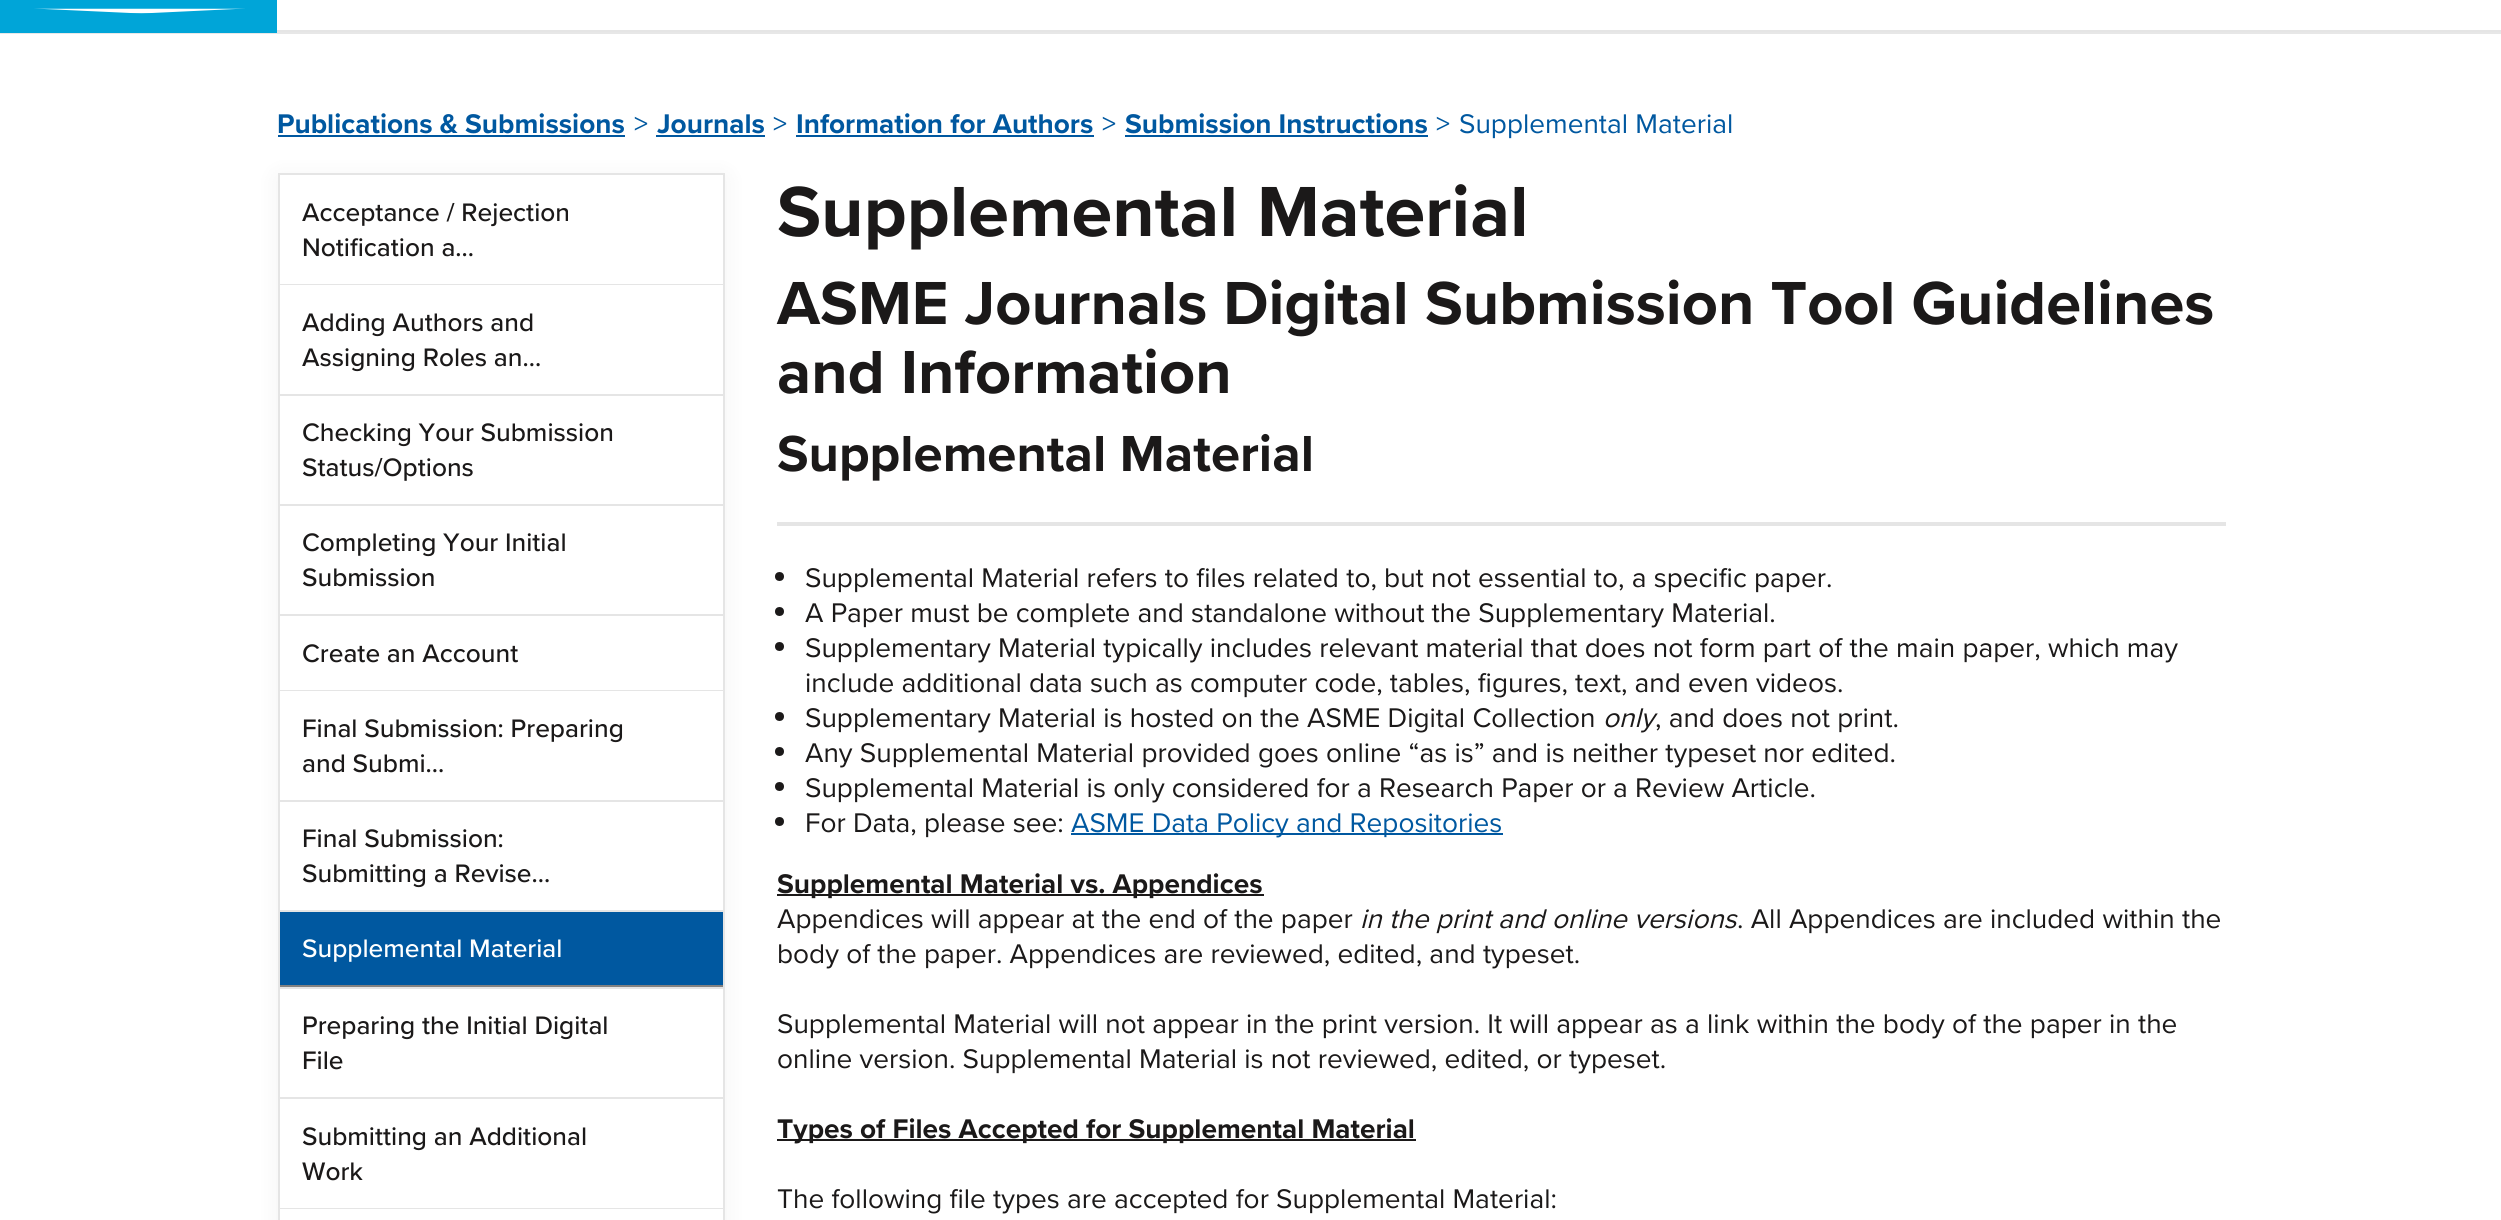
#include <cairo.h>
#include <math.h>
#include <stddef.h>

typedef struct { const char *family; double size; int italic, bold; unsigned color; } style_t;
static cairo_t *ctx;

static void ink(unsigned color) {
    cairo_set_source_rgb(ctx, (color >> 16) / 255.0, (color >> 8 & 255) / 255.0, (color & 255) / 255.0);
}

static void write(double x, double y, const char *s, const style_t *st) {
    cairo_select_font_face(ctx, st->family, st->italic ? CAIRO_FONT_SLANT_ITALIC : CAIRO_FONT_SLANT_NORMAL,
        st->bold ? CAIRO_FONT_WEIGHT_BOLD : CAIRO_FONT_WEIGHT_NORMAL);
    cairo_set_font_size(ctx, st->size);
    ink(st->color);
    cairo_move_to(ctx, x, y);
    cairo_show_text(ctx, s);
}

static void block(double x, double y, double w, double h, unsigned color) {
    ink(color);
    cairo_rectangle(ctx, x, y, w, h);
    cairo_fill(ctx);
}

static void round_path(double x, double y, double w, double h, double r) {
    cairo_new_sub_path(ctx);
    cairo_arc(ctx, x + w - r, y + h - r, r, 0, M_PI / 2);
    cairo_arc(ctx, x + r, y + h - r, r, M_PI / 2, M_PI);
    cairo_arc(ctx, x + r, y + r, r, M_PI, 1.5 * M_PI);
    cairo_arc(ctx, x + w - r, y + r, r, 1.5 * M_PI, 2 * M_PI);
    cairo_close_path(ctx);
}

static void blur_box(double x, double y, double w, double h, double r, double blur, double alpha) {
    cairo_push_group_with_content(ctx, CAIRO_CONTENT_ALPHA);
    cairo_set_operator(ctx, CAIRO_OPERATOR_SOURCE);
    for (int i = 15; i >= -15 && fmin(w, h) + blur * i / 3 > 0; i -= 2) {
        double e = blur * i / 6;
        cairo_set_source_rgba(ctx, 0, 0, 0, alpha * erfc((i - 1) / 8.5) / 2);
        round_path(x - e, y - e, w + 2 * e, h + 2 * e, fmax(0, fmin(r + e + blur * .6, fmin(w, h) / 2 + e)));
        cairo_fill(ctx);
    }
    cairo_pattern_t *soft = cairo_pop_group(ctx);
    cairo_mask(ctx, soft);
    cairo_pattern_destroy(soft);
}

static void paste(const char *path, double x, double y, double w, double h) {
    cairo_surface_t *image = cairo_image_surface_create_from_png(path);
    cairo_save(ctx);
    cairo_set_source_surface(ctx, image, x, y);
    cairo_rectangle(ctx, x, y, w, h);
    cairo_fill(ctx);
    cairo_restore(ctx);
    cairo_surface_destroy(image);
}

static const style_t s1 = {"Proxima Nova", 28, 0, 1, 0x0058a0};
static const style_t s2 = {"Proxima Nova", 28, 0, 0, 0x0058a0};
static const style_t s3 = {"Proxima Nova Medium", 26.25, 0, 0, 0x1b1919};
static const style_t s4 = {"Proxima Nova Medium", 26.25, 0, 0, 0xffffff};
static const style_t s5 = {"Proxima Nova", 73.5, 0, 1, 0x1b1919};
static const style_t s6 = {"Proxima Nova", 63, 0, 1, 0x1b1919};
static const style_t s7 = {"Proxima Nova", 52.5, 0, 1, 0x1b1919};
static const style_t s8 = {"Proxima Nova", 28, 0, 0, 0x1b1919};
static const style_t s9 = {"Proxima Nova", 28, 1, 0, 0x1b1919};
static const style_t s10 = {"Proxima Nova", 28, 0, 1, 0x1b1919};

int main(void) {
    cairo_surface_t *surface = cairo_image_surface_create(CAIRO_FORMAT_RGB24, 2501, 1220);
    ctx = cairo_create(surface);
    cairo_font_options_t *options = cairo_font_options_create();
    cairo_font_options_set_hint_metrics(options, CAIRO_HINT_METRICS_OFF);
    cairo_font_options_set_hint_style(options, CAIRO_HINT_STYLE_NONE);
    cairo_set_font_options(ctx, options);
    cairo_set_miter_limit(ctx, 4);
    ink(0xffffff);
    cairo_paint(ctx);
    block(0, 32, 2501, 2, 0xe7e7e7);
    block(0, 0, 277, 33, 0x00a5d8);
    paste("pic1.png", 34, 8, 211, 6);
    block(277, 30, 2224, 2, 0xe5e5e5);
    write(277, 133, "Publications & Submissions", &s1);
    block(278, 135, 347, 2, 0x0058a0);
    write(634, 133, ">", &s2);
    write(657, 133, "Journals", &s1);
    block(656, 135, 109, 2, 0x0058a0);
    write(773, 133, ">", &s2);
    write(796, 133, "Information for Authors", &s1);
    block(796, 135, 298, 2, 0x0058a0);
    write(1102, 133, ">", &s2);
    write(1125, 133, "Submission Instructions", &s1);
    block(1125, 135, 303, 2, 0x0058a0);
    write(1436, 133, ">", &s2);
    write(1459, 133, "Supplemental Material", &s2);
    ink(0x000000);
    blur_box(278, 177, 447, 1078, 0, 11.5, 0.05);
    block(280, 175, 443, 1033, 0xffffff);
    block(278, 173, 447, 2, 0xe5e5e5);
    block(723, 173, 2, 1047, 0xe5e5e5);
    block(278, 173, 2, 1047, 0xe5e5e5);
    block(280, 284, 443, 1, 0xe5e5e5);
    write(302, 221, "Acceptance / Rejection", &s3);
    write(302, 256, "Notification a...", &s3);
    block(280, 394, 443, 2, 0xe5e5e5);
    write(302, 331, "Adding Authors and", &s3);
    write(302, 366, "Assigning Roles an...", &s3);
    block(280, 504, 443, 2, 0xe5e5e5);
    write(302, 441, "Checking Your Submission", &s3);
    write(302, 476, "Status/Options", &s3);
    block(280, 614, 443, 2, 0xe5e5e5);
    write(302, 551, "Completing Your Initial", &s3);
    write(302, 586, "Submission", &s3);
    block(280, 690, 443, 1, 0xe5e5e5);
    write(302, 662, "Create an Account", &s3);
    block(280, 800, 443, 2, 0xe5e5e5);
    write(302, 737, "Final Submission: Preparing", &s3);
    write(302, 772, "and Submi...", &s3);
    block(280, 910, 443, 2, 0xe5e5e5);
    write(302, 847, "Final Submission:", &s3);
    write(302, 882, "Submitting a Revise...", &s3);
    block(280, 987, 443, 2, 0xe5e5e5);
    block(280, 912, 443, 73, 0x0058a0);
    write(302, 957, "Supplemental Material", &s4);
    block(280, 985, 443, 2, 0x818181);
    block(280, 1097, 443, 2, 0xe5e5e5);
    write(302, 1034, "Preparing the Initial Digital", &s3);
    write(302, 1069, "File", &s3);
    block(280, 1208, 443, 1, 0xe5e5e5);
    write(302, 1145, "Submitting an Additional", &s3);
    write(302, 1180, "Work", &s3);
    block(280, 1209, 443, 11, 0xffffff);
    write(777, 236, "Supplemental Material", &s5);
    write(777, 324, "ASME Journals Digital Submission Tool Guidelines", &s6);
    write(777, 393, "and Information", &s6);
    write(777, 471, "Supplemental Material", &s7);
    block(777, 522, 1449, 4, 0xe5e5e5);
    ink(0x1b1919);
    cairo_new_path(ctx);
    cairo_arc(ctx, 779.5, 576.5, 4.5, 0, 2 * M_PI);
    cairo_fill(ctx);
    write(805, 587, "Supplemental Material refers to files related to, but not essential to, a specific paper.", &s8);
    cairo_new_path(ctx);
    cairo_arc(ctx, 779.5, 611.5, 4.5, 0, 2 * M_PI);
    cairo_fill(ctx);
    write(805, 622, "A Paper must be complete and standalone without the Supplementary Material.", &s8);
    cairo_new_path(ctx);
    cairo_arc(ctx, 779.5, 646.5, 4.5, 0, 2 * M_PI);
    cairo_fill(ctx);
    write(805, 657, "Supplementary Material typically includes relevant material that does not form part of the main paper, which may", &s8);
    write(805, 692, "include additional data such as computer code, tables, figures, text, and even videos.", &s8);
    cairo_new_path(ctx);
    cairo_arc(ctx, 779.5, 716.5, 4.5, 0, 2 * M_PI);
    cairo_fill(ctx);
    write(805, 727, "Supplementary Material is hosted on the ASME Digital Collection", &s8);
    write(1603, 727, "only", &s9);
    write(1655, 727, ", and does not print.", &s8);
    cairo_new_path(ctx);
    cairo_arc(ctx, 779.5, 751.5, 4.5, 0, 2 * M_PI);
    cairo_fill(ctx);
    write(805, 762, "Any Supplemental Material provided goes online “as is” and is neither typeset nor edited.", &s8);
    cairo_new_path(ctx);
    cairo_arc(ctx, 779.5, 786.5, 4.5, 0, 2 * M_PI);
    cairo_fill(ctx);
    write(805, 797, "Supplemental Material is only considered for a Research Paper or a Review Article.", &s8);
    cairo_new_path(ctx);
    cairo_arc(ctx, 779.5, 821.5, 4.5, 0, 2 * M_PI);
    cairo_fill(ctx);
    write(805, 832, "For Data, please see:", &s8);
    block(1071, 833, 432, 2, 0x0058a0);
    write(1071, 832, "ASME Data Policy and Repositories", &s2);
    block(777, 894, 487, 2, 0x1b1919);
    write(777, 893, "Supplemental Material vs. Appendices", &s10);
    write(777, 928, "Appendices will appear at the end of the paper", &s8);
    write(1360, 928, "in the print and online versions", &s9);
    write(1737, 928, ". All Appendices are included within the", &s8);
    write(777, 963, "body of the paper. Appendices are reviewed, edited, and typeset.", &s8);
    write(777, 1033, "Supplemental Material will not appear in the print version. It will appear as a link within the body of the paper in the", &s8);
    write(777, 1068, "online version. Supplemental Material is not reviewed, edited, or typeset.", &s8);
    block(777, 1139, 639, 2, 0x1b1919);
    write(777, 1138, "Types of Files Accepted for Supplemental Material", &s10);
    write(777, 1208, "The following file types are accepted for Supplemental Material:", &s8);
    cairo_surface_write_to_png(surface, "screenshot.png");
    cairo_font_options_destroy(options);
    cairo_destroy(ctx);
    cairo_surface_destroy(surface);
    return 0;
}
